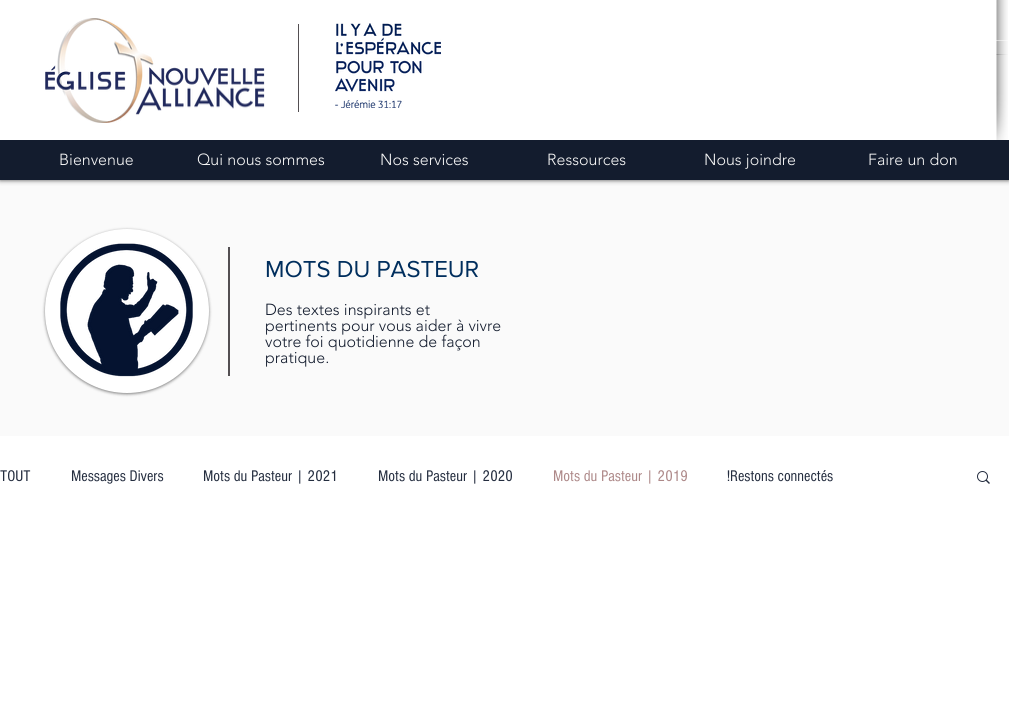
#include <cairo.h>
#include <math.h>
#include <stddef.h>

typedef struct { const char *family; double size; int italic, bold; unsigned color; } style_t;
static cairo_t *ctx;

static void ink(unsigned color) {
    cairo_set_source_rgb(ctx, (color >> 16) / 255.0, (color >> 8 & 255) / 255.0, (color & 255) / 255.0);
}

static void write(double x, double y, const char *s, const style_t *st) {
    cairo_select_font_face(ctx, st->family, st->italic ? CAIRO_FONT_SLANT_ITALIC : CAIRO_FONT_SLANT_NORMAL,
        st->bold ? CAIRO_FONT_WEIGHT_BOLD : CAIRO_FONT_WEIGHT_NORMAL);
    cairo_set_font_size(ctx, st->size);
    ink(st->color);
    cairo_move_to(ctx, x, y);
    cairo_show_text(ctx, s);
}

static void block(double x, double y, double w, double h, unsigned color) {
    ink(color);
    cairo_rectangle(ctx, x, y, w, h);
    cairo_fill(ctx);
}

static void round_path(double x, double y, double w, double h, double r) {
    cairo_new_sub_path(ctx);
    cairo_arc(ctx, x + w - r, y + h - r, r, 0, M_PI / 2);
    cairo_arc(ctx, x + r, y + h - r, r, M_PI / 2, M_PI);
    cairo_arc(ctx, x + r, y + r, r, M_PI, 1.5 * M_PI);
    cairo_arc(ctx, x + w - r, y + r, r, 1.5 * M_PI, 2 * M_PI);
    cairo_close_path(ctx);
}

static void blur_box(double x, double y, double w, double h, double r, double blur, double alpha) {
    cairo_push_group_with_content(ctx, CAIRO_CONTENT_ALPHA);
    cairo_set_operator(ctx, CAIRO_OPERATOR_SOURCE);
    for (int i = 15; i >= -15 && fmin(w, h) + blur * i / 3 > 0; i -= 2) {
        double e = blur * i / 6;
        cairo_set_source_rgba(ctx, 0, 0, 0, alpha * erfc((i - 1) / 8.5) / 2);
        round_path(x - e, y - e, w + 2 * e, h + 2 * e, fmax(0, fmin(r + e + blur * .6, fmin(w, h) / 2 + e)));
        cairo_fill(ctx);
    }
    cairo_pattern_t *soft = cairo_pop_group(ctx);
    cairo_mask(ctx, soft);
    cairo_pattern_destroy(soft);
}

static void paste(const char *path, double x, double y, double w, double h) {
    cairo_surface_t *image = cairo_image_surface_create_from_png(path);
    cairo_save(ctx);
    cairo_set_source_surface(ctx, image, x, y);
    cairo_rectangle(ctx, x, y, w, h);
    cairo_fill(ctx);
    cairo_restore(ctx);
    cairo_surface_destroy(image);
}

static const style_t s1 = {"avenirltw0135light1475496 Light", 16, 0, 0, 0xf7f7f7};
static const style_t s2 = {"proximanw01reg", 24, 0, 0, 0x002e5d};
static const style_t s3 = {"avenirltw0135light1475496 Light", 16, 0, 0, 0x131c2e};
static const style_t s4 = {"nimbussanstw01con", 16, 0, 0, 0x242d3f};
static const style_t s5 = {"nimbussanstw01con", 16, 0, 0, 0xad8888};

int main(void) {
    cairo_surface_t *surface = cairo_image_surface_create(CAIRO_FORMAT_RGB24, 1009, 728);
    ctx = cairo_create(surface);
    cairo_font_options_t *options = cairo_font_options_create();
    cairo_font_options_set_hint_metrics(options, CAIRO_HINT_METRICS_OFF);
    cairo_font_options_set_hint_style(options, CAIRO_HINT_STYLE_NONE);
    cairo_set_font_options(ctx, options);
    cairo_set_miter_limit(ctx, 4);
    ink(0xfafafa);
    cairo_paint(ctx);
    ink(0x000000);
    blur_box(0, 0, 1009, 180, 0, 2.5, 0.7);
    block(0, 0, 1009, 140, 0xffffff);
    paste("pic1.png", 45, 18, 220, 105);
    block(298, 24, 1, 88, 0x534f52);
    paste("pic2.png", 335, 23, 106, 85);
    paste("pic3.png", 996, 0, 12, 41);
    paste("pic4.png", 996, 41, 12, 14);
    paste("pic5.png", 996, 54, 12, 86);
    block(0, 140, 1009, 40, 0x131c2e);
    write(59, 165, "Bienvenue", &s1);
    write(197, 165, "Qui nous sommes", &s1);
    write(380, 165, "Nos services", &s1);
    write(547, 165, "Ressources", &s1);
    write(704, 165, "Nous joindre", &s1);
    write(868, 165, "Faire un don", &s1);
    ink(0x000000);
    blur_box(45, 230, 164, 164, 82, 1.5, 0.5);
    ink(0xffffff);
    cairo_arc(ctx, 127, 311, 78, 0, 2 * M_PI);
    cairo_fill_preserve(ctx);
    cairo_set_line_width(ctx, 8);
    cairo_stroke(ctx);
    paste("pic6.png", 60, 243, 133, 134);
    block(228, 247, 2, 129, 0x534f52);
    write(265, 277, "MOTS DU PASTEUR", &s2);
    write(265, 315, "Des textes inspirants et", &s3);
    write(265, 331, "pertinents pour vous aider à vivre", &s3);
    write(265, 347, "votre foi quotidienne de façon", &s3);
    write(265, 363, "pratique.", &s3);
    block(0, 436, 1009, 292, 0xffffff);
    write(0, 481, "TOUT", &s4);
    write(71, 481, "Messages Divers", &s4);
    write(203, 481, "Mots du Pasteur | 2021", &s4);
    write(378, 481, "Mots du Pasteur | 2020", &s4);
    write(553, 481, "Mots du Pasteur | 2019", &s5);
    write(727, 481, "!Restons connectés", &s4);
    paste("pic7.png", 977, 471, 13, 13);
    cairo_surface_write_to_png(surface, "screenshot.png");
    cairo_font_options_destroy(options);
    cairo_destroy(ctx);
    cairo_surface_destroy(surface);
    return 0;
}
